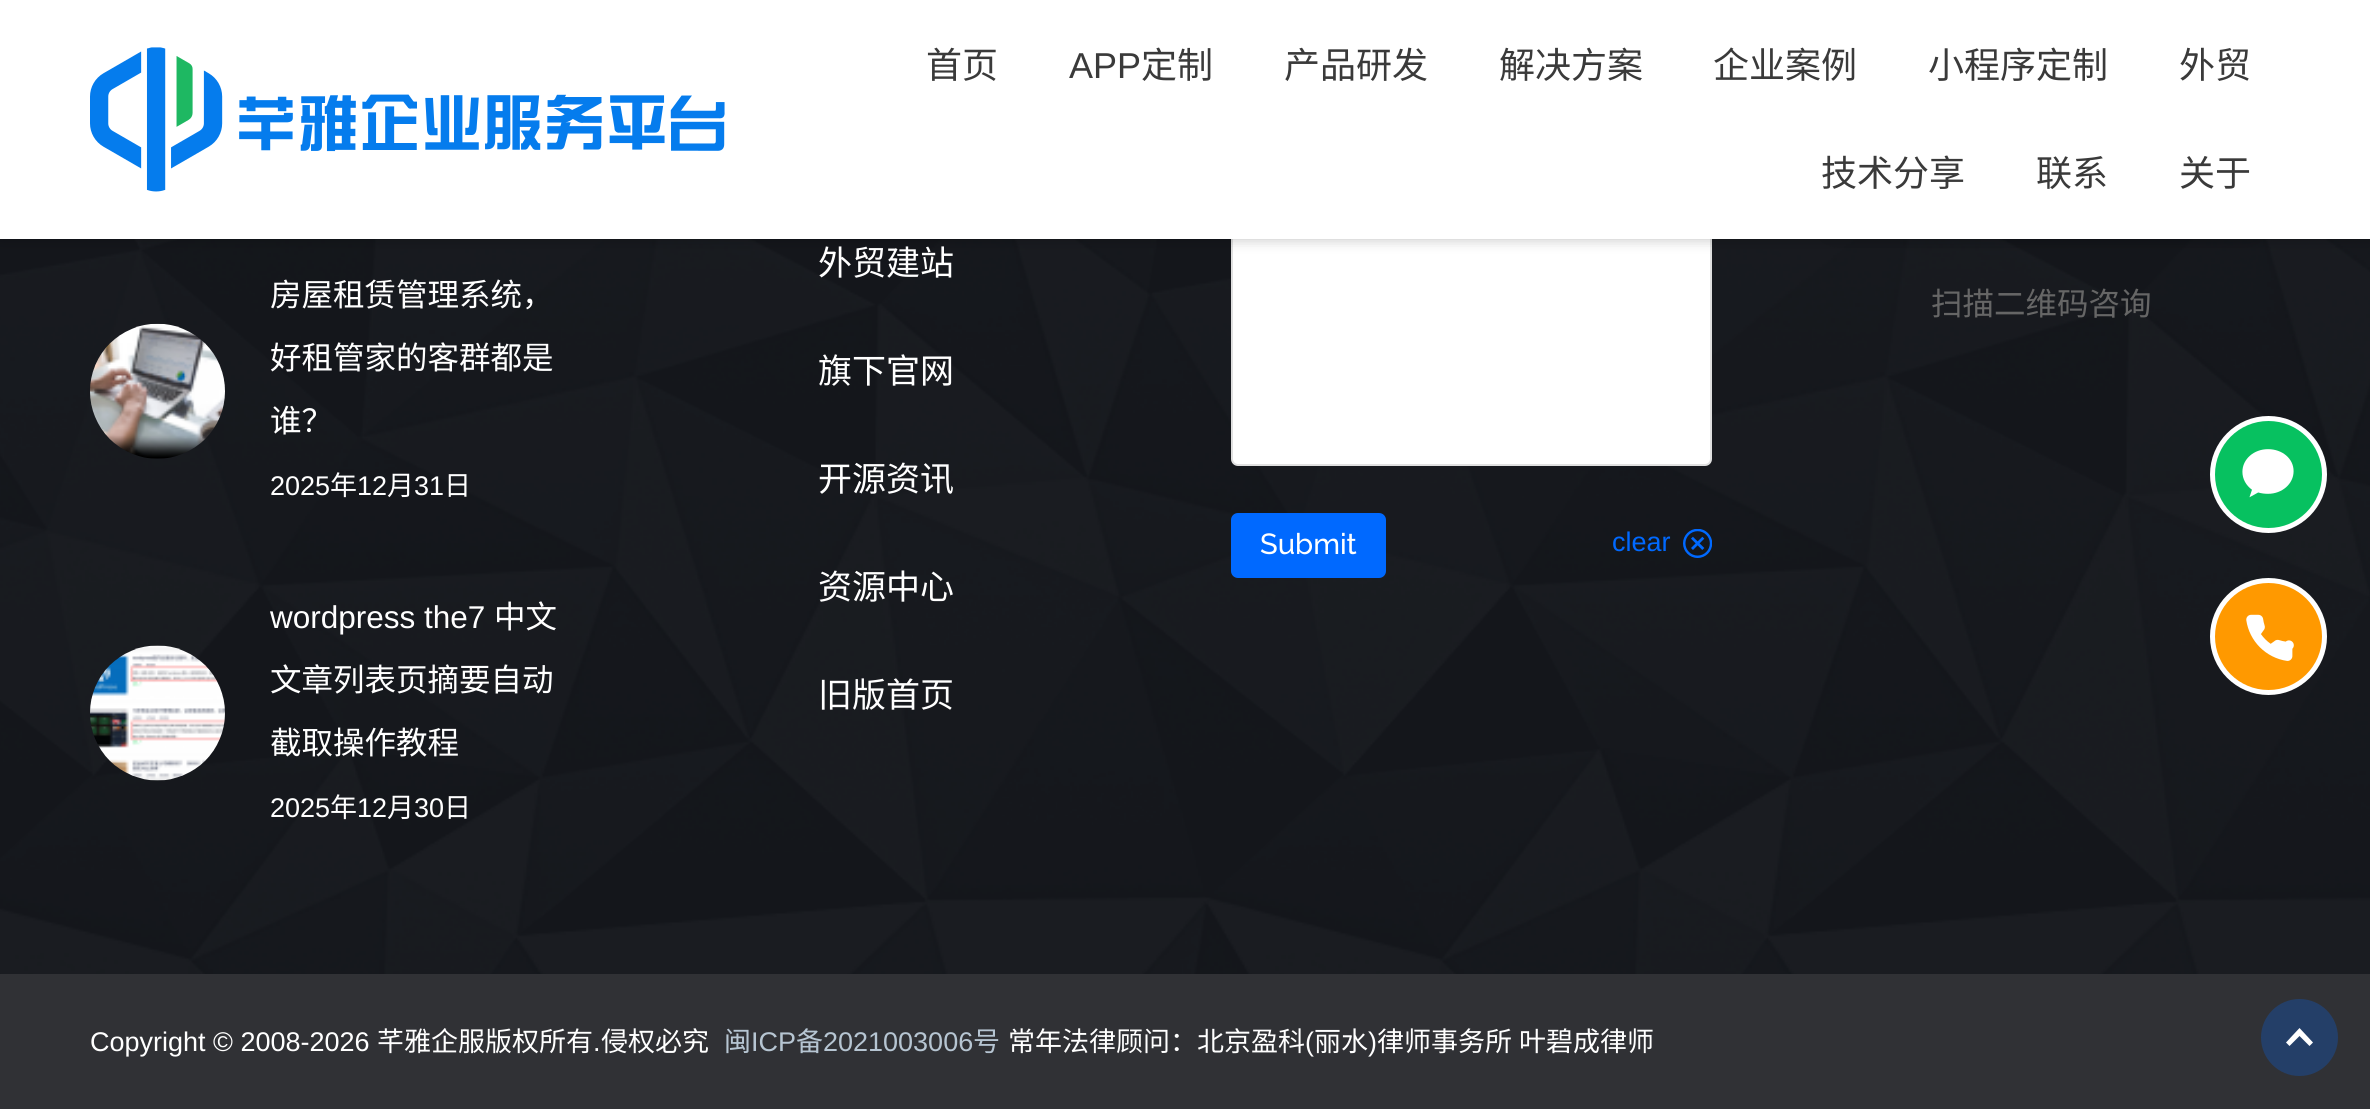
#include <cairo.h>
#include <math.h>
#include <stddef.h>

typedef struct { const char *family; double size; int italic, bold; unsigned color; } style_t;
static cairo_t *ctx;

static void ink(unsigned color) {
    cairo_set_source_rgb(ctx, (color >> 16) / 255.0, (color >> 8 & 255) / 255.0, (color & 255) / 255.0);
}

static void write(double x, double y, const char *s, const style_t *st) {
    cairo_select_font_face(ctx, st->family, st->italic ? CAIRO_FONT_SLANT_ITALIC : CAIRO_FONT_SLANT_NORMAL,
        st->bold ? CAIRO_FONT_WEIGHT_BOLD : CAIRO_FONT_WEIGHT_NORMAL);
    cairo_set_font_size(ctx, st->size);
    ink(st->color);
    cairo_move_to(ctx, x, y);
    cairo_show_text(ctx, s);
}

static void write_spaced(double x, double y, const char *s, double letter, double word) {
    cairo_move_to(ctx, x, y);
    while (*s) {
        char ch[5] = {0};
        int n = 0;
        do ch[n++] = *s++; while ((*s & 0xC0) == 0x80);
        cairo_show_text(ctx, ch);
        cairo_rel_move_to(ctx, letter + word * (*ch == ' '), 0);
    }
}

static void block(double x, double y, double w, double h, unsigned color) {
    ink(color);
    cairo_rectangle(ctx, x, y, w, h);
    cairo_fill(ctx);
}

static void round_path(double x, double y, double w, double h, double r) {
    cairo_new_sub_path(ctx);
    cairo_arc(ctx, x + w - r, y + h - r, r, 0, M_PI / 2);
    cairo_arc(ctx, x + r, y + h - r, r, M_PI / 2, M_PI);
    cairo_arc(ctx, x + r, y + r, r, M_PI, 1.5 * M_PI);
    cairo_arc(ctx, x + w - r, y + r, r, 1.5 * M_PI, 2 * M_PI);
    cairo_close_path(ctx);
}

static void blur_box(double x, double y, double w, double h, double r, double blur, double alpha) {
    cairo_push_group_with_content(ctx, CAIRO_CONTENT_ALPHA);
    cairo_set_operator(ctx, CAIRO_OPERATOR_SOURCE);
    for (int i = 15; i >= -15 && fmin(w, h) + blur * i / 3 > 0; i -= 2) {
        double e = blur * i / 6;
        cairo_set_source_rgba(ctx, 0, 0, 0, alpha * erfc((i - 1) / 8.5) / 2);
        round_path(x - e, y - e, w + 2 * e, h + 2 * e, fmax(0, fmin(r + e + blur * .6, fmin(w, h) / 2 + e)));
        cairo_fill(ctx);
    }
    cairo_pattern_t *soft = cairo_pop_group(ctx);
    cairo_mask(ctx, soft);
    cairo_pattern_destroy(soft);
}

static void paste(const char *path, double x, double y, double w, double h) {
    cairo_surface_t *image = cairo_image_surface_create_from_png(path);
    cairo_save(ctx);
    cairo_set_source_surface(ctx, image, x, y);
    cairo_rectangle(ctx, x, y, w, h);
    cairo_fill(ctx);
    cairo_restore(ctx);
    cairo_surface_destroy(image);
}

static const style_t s1 = {"Noto Sans CJK SC", 36, 0, 0, 0x3a3a3a};
static const style_t s2 = {"Liberation Sans", 36, 0, 0, 0x3a3a3a};
static const style_t s3 = {"Noto Sans CJK SC", 31.5, 0, 0, 0xffffff};
static const style_t s4 = {"Liberation Sans", 27, 0, 0, 0xffffff};
static const style_t s5 = {"Noto Sans CJK SC", 27, 0, 0, 0xffffff};
static const style_t s6 = {"Liberation Sans", 31.5, 0, 0, 0xffffff};
static const style_t s7 = {"Noto Sans CJK SC", 34, 0, 0, 0xffffff};
static const style_t s8 = {"Noto Sans CJK SC", 31.5, 0, 0, 0x666666};
static const style_t s9 = {"Raleway Medium", 29, 0, 0, 0xffffff};
static const style_t s10 = {"Liberation Sans", 27, 0, 0, 0x0069ff};
static const style_t s11 = {"Noto Sans CJK SC", 27, 0, 0, 0xb6c5d2};
static const style_t s12 = {"Liberation Sans", 27, 0, 0, 0xb6c5d2};

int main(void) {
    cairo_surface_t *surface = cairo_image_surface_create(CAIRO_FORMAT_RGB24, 2370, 1109);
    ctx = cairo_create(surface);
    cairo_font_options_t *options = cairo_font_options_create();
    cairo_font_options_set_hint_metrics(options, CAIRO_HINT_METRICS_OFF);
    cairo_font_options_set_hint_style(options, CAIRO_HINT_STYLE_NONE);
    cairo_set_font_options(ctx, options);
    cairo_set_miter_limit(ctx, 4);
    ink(0xffffff);
    cairo_paint(ctx);
    paste("pic2.png", 0, 239, 2370, 735);
    ink(0xffffff);
    round_path(1232, 46, 479, 419, 6);
    cairo_fill_preserve(ctx);
    ink(0xe0e0e0);
    cairo_stroke(ctx);
    ink(0x000000);
    blur_box(0, 0, 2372, 239, 0, 7, 0.25);
    blur_box(1816, -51, 450, 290, 18, 11, 0.1);
    block(0, 0, 2370, 239, 0xffffff);
    paste("pic1.png", 90, 47, 635, 145);
    write(926, 78, "首页", &s1);
    write(1069, 78, "APP", &s2);
    write(1141, 78, "定制", &s1);
    write(1284, 78, "产品研发", &s1);
    write(1499, 78, "解决方案", &s1);
    write(1713, 78, "企业案例", &s1);
    write(1928, 78, "小程序定制", &s1);
    write(2179, 78, "外贸", &s1);
    write(1821, 186, "技术分享", &s1);
    write(2036, 186, "联系", &s1);
    write(2179, 186, "关于", &s1);
    paste("pic3.png", 90, 323, 135, 136);
    write(270, 306, "房屋租赁管理系统，", &s3);
    write(270, 369, "好租管家的客群都是", &s3);
    write(270, 432, "谁？", &s3);
    write(270, 495, "2025", &s4);
    write(330, 495, "年", &s5);
    write(357, 495, "12", &s4);
    write(387, 495, "月", &s5);
    write(414, 495, "31", &s4);
    write(444, 495, "日", &s5);
    paste("pic4.png", 90, 645, 135, 136);
    write(270, 628, "wordpress the7", &s6);
    write(494, 628, "中文", &s3);
    write(270, 691, "文章列表页摘要自动", &s3);
    write(270, 754, "截取操作教程", &s3);
    write(270, 817, "2025", &s4);
    write(330, 817, "年", &s5);
    write(357, 817, "12", &s4);
    write(387, 817, "月", &s5);
    write(414, 817, "30", &s4);
    write(444, 817, "日", &s5);
    write(818, 275, "外贸建站", &s7);
    write(818, 383, "旗下官网", &s7);
    write(818, 491, "开源资讯", &s7);
    write(818, 599, "资源中心", &s7);
    write(818, 707, "旧版首页", &s7);
    write(1931, 315, "扫描二维码咨询", &s8);
    ink(0x0069ff);
    round_path(1231, 513, 155, 65, 7);
    cairo_fill(ctx);
    write(1260, 554, "Submit", &s9);
    write(1612, 551, "clear", &s10);
    paste("pic5.png", 1683, 529, 29, 29);
    block(0, 974, 2370, 135, 0x303135);
    write(90, 1051, "Copyright © 2008-2026", &s4);
    write(377, 1051, "芊雅企服版权所有", &s5);
    write(593, 1051, ".", &s4);
    write(601, 1051, "侵权必究", &s5);
    write(724, 1051, "闽", &s11);
    write(751, 1051, "ICP", &s12);
    write(796, 1051, "备", &s11);
    write(823, 1051, "2021003006", &s12);
    write(973, 1051, "号", &s11);
    write(1008, 1051, "常年法律顾问：北京盈科", &s5);
    write(1305, 1051, "(", &s4);
    write(1314, 1051, "丽水", &s5);
    write(1368, 1051, ")", &s4);
    cairo_select_font_face(ctx, "Noto Sans CJK SC", CAIRO_FONT_SLANT_NORMAL, CAIRO_FONT_WEIGHT_NORMAL);
    write_spaced(1377, 1051, "律师事务所 叶碧成律师", 0, 1);
    ink(0x243f68);
    cairo_new_path(ctx);
    cairo_arc(ctx, 2299.5, 1037.5, 38.5, 0, 2 * M_PI);
    cairo_fill(ctx);
    ink(0xffffff);
    cairo_new_path(ctx);
    cairo_move_to(ctx, 2299.5, 1036);
    cairo_line_to(ctx, 2289.5, 1046);
    cairo_line_to(ctx, 2286, 1042.5);
    cairo_line_to(ctx, 2299.5, 1028);
    cairo_line_to(ctx, 2313, 1042.5);
    cairo_line_to(ctx, 2309.5, 1046);
    cairo_close_path(ctx);
    cairo_fill(ctx);
    ink(0x07c160);
    cairo_arc(ctx, 2268.5, 474.5, 56, 0, 2 * M_PI);
    cairo_fill_preserve(ctx);
    ink(0xffffff);
    cairo_set_line_width(ctx, 5);
    cairo_stroke(ctx);
    paste("pic6.png", 2242, 449, 52, 49);
    ink(0xff9900);
    cairo_arc(ctx, 2268.5, 636.5, 56, 0, 2 * M_PI);
    cairo_fill_preserve(ctx);
    ink(0xffffff);
    cairo_stroke(ctx);
    paste("pic7.png", 2246, 614, 48, 47);
    cairo_surface_write_to_png(surface, "screenshot.png");
    cairo_font_options_destroy(options);
    cairo_destroy(ctx);
    cairo_surface_destroy(surface);
    return 0;
}
